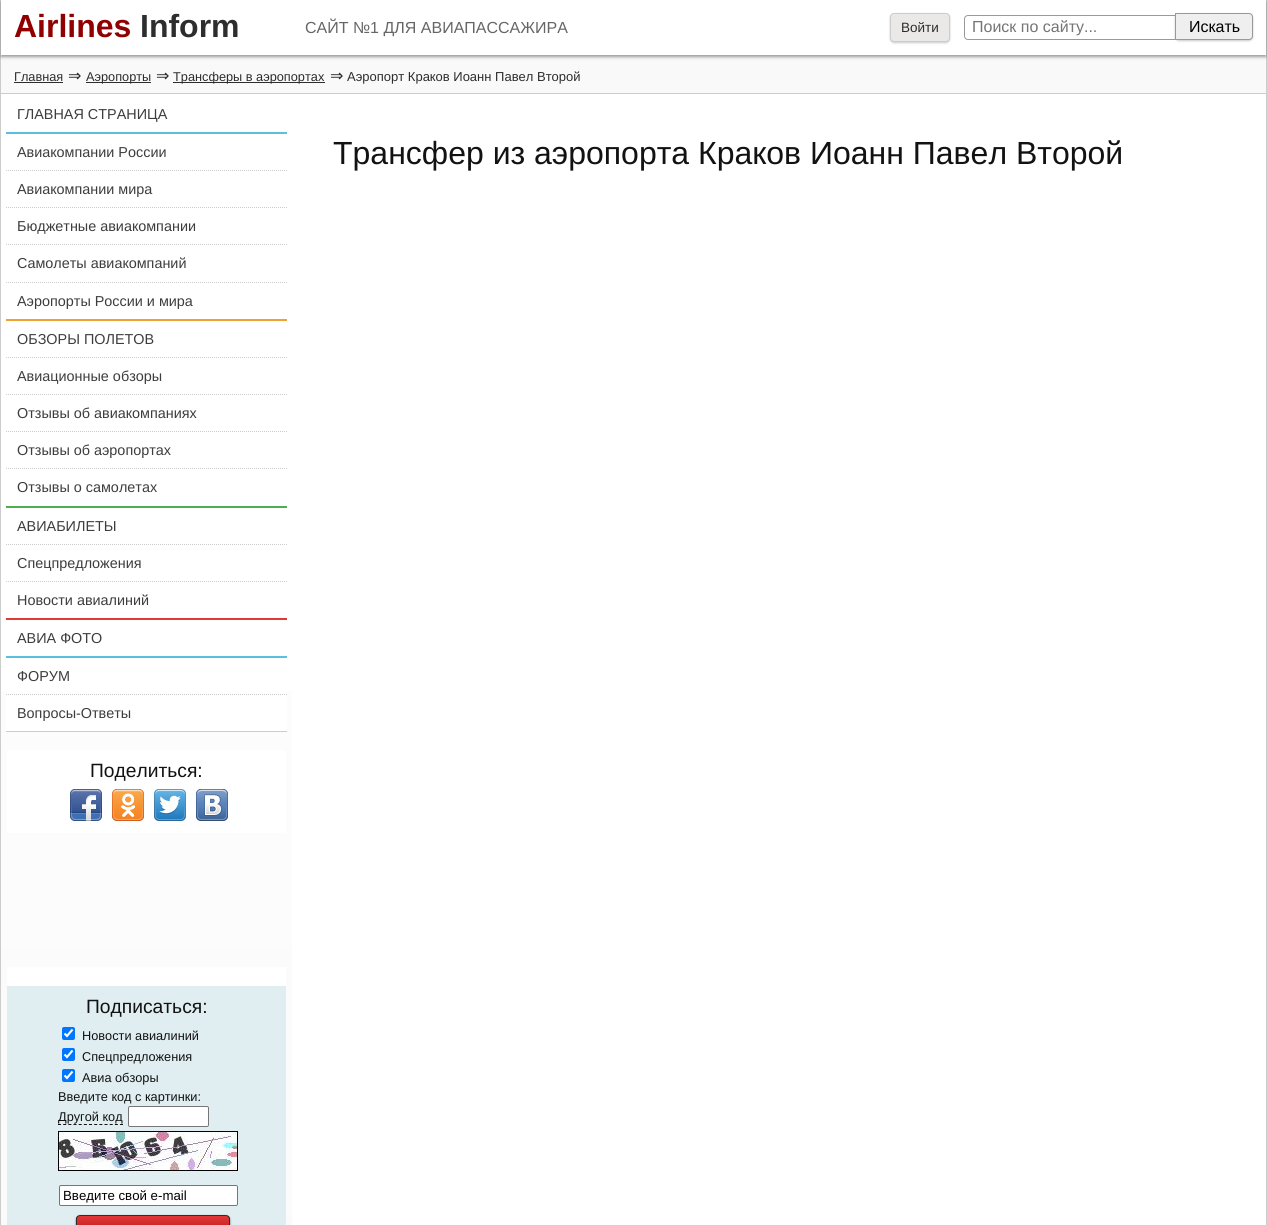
#include <cairo.h>
#include <math.h>
#include <stddef.h>

typedef struct { const char *family; double size; int italic, bold; unsigned color; } style_t;
static cairo_t *ctx;

static void ink(unsigned color) {
    cairo_set_source_rgb(ctx, (color >> 16) / 255.0, (color >> 8 & 255) / 255.0, (color & 255) / 255.0);
}

static void write(double x, double y, const char *s, const style_t *st) {
    cairo_select_font_face(ctx, st->family, st->italic ? CAIRO_FONT_SLANT_ITALIC : CAIRO_FONT_SLANT_NORMAL,
        st->bold ? CAIRO_FONT_WEIGHT_BOLD : CAIRO_FONT_WEIGHT_NORMAL);
    cairo_set_font_size(ctx, st->size);
    ink(st->color);
    cairo_move_to(ctx, x, y);
    cairo_show_text(ctx, s);
}

static void block(double x, double y, double w, double h, unsigned color) {
    ink(color);
    cairo_rectangle(ctx, x, y, w, h);
    cairo_fill(ctx);
}

static void round_path(double x, double y, double w, double h, double r) {
    cairo_new_sub_path(ctx);
    cairo_arc(ctx, x + w - r, y + h - r, r, 0, M_PI / 2);
    cairo_arc(ctx, x + r, y + h - r, r, M_PI / 2, M_PI);
    cairo_arc(ctx, x + r, y + r, r, M_PI, 1.5 * M_PI);
    cairo_arc(ctx, x + w - r, y + r, r, 1.5 * M_PI, 2 * M_PI);
    cairo_close_path(ctx);
}

static void blur_box(double x, double y, double w, double h, double r, double blur, double alpha) {
    cairo_push_group_with_content(ctx, CAIRO_CONTENT_ALPHA);
    cairo_set_operator(ctx, CAIRO_OPERATOR_SOURCE);
    for (int i = 15; i >= -15 && fmin(w, h) + blur * i / 3 > 0; i -= 2) {
        double e = blur * i / 6;
        cairo_set_source_rgba(ctx, 0, 0, 0, alpha * erfc((i - 1) / 8.5) / 2);
        round_path(x - e, y - e, w + 2 * e, h + 2 * e, fmax(0, fmin(r + e + blur * .6, fmin(w, h) / 2 + e)));
        cairo_fill(ctx);
    }
    cairo_pattern_t *soft = cairo_pop_group(ctx);
    cairo_mask(ctx, soft);
    cairo_pattern_destroy(soft);
}

static void paste(const char *path, double x, double y, double w, double h) {
    cairo_surface_t *image = cairo_image_surface_create_from_png(path);
    cairo_save(ctx);
    cairo_set_source_surface(ctx, image, x, y);
    cairo_rectangle(ctx, x, y, w, h);
    cairo_fill(ctx);
    cairo_restore(ctx);
    cairo_surface_destroy(image);
}

static const style_t s1 = {"Liberation Sans", 32, 0, 1, 0x900000};
static const style_t s2 = {"Liberation Sans", 32, 0, 1, 0x2d2d2d};
static const style_t s3 = {"Liberation Sans", 16, 0, 0, 0x666666};
static const style_t s4 = {"Liberation Sans", 13.5, 0, 0, 0x2d2d2d};
static const style_t s5 = {"Liberation Sans", 16, 0, 0, 0x757575};
static const style_t s6 = {"Liberation Sans", 16, 0, 0, 0x000000};
static const style_t s7 = {"Liberation Sans", 12.75, 0, 0, 0x2d2d2d};
static const style_t s8 = {"DejaVu Sans", 16, 0, 0, 0x2d2d2d};
static const style_t s9 = {"Liberation Sans", 13, 0, 0, 0x2d2d2d};
static const style_t s10 = {"Liberation Sans", 14.4, 0, 0, 0x3d3d3d};
static const style_t s11 = {"Liberation Sans", 19.25, 0, 0, 0x121212};
static const style_t s12 = {"Liberation Sans", 12.75, 0, 0, 0x121212};
static const style_t s13 = {"Liberation Sans", 13.25, 0, 0, 0x000000};
static const style_t s14 = {"Liberation Sans", 32, 0, 0, 0x121212};

int main(void) {
    cairo_surface_t *surface = cairo_image_surface_create(CAIRO_FORMAT_RGB24, 1267, 1225);
    ctx = cairo_create(surface);
    cairo_font_options_t *options = cairo_font_options_create();
    cairo_font_options_set_hint_metrics(options, CAIRO_HINT_METRICS_OFF);
    cairo_font_options_set_hint_style(options, CAIRO_HINT_STYLE_NONE);
    cairo_set_font_options(ctx, options);
    cairo_set_miter_limit(ctx, 4);
    cairo_pattern_t *gradient;
    ink(0xffffff);
    cairo_paint(ctx);
    gradient = cairo_pattern_create_linear(1, 0, 1, 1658);
    cairo_pattern_add_color_stop_rgba(gradient, 0, 1, 1, 1, 1);
    cairo_pattern_add_color_stop_rgba(gradient, 1, 0.98, 0.976, 0.976, 1);
    cairo_set_source(ctx, gradient);
    cairo_pattern_destroy(gradient);
    cairo_rectangle(ctx, 1, 691, 1265, 534);
    cairo_fill(ctx);
    block(1266, 0, 1, 1225, 0xcccccc);
    block(0, 0, 1, 1225, 0xcccccc);
    block(1, 58, 1265, 35, 0xfaf9f9);
    cairo_save(ctx);
    cairo_set_fill_rule(ctx, CAIRO_FILL_RULE_EVEN_ODD);
    cairo_new_path(ctx);
    cairo_move_to(ctx, 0, 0);
    cairo_line_to(ctx, 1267, 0);
    cairo_line_to(ctx, 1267, 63);
    cairo_line_to(ctx, 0, 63);
    cairo_close_path(ctx);
    cairo_move_to(ctx, 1, 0);
    cairo_line_to(ctx, 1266, 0);
    cairo_line_to(ctx, 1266, 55);
    cairo_line_to(ctx, 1, 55);
    cairo_close_path(ctx);
    cairo_clip(ctx);
    ink(0x000000);
    blur_box(1, 2, 1265, 55, 0, 1.5, 0.4);
    cairo_restore(ctx);
    write(14, 37, "Airlines", &s1);
    write(140, 37, "Inform", &s2);
    write(305, 33, "САЙТ №1 ДЛЯ АВИАПАССАЖИРА", &s3);
    ink(0x000000);
    blur_box(890, 14, 60, 29, 4, 1, 0.2);
    ink(0xebe8e8);
    round_path(890.5, 13.5, 59, 28, 3.5);
    cairo_fill_preserve(ctx);
    ink(0xcccccc);
    cairo_set_line_width(ctx, 1);
    cairo_stroke(ctx);
    write(901, 32, "Войти", &s4);
    cairo_new_path(ctx);
    cairo_move_to(ctx, 968, 15.5);
    cairo_line_to(ctx, 1185.5, 15.5);
    cairo_line_to(ctx, 1185.5, 39.5);
    cairo_line_to(ctx, 968, 39.5);
    cairo_curve_to(ctx, 966, 39.5, 964.5, 38, 964.5, 36);
    cairo_line_to(ctx, 964.5, 19);
    cairo_curve_to(ctx, 964.5, 17, 966, 15.5, 968, 15.5);
    cairo_close_path(ctx);
    ink(0x999999);
    cairo_stroke(ctx);
    write(972, 32, "Поиск по сайту...", &s5);
    ink(0x000000);
    blur_box(1175, 14, 78, 27, 4, 1, 0.2);
    ink(0xefefef);
    cairo_new_path(ctx);
    cairo_move_to(ctx, 1175.5, 13.5);
    cairo_line_to(ctx, 1249, 13.5);
    cairo_curve_to(ctx, 1251, 13.5, 1252.5, 15, 1252.5, 17);
    cairo_line_to(ctx, 1252.5, 36);
    cairo_curve_to(ctx, 1252.5, 38, 1251, 39.5, 1249, 39.5);
    cairo_line_to(ctx, 1175.5, 39.5);
    cairo_close_path(ctx);
    cairo_fill_preserve(ctx);
    ink(0x999999);
    cairo_stroke(ctx);
    write(1189, 32, "Искать", &s6);
    block(1, 93, 1265, 1, 0xcccccc);
    write(14, 81, "Главная", &s7);
    block(14, 82, 49, 1, 0x2d2d2d);
    write(68, 81, "⇒", &s8);
    block(86, 82, 65, 1, 0x2d2d2d);
    write(86, 81, "Аэропорты", &s7);
    write(156, 81, "⇒", &s8);
    block(173, 82, 152, 1, 0x2d2d2d);
    write(173, 81, "Трансферы в аэропортах", &s7);
    write(330, 81, "⇒", &s8);
    write(347, 81, "Аэропорт Краков Иоанн Павел Второй", &s9);
    block(6, 691, 281, 40, 0xffffff);
    block(6, 731, 281, 1, 0xcccccc);
    write(17, 119, "ГЛАВНАЯ СТРАНИЦА", &s10);
    block(6, 132, 281, 2, 0x5bc0de);
    cairo_new_path(ctx);
    cairo_move_to(ctx, 6, 170.5);
    cairo_line_to(ctx, 287, 170.5);
    ink(0xcccccc);
    cairo_set_dash(ctx, (double[]){1, 1}, 2, 0);
    cairo_stroke(ctx);
    write(17, 157, "Авиакомпании России", &s10);
    cairo_new_path(ctx);
    cairo_move_to(ctx, 6, 207.5);
    cairo_line_to(ctx, 287, 207.5);
    ink(0xcccccc);
    cairo_stroke(ctx);
    write(17, 194, "Авиакомпании мира", &s10);
    cairo_new_path(ctx);
    cairo_move_to(ctx, 6, 244.5);
    cairo_line_to(ctx, 287, 244.5);
    ink(0xcccccc);
    cairo_stroke(ctx);
    write(17, 231, "Бюджетные авиакомпании", &s10);
    cairo_new_path(ctx);
    cairo_move_to(ctx, 6, 282.5);
    cairo_line_to(ctx, 287, 282.5);
    ink(0xcccccc);
    cairo_stroke(ctx);
    write(17, 268, "Самолеты авиакомпаний", &s10);
    write(17, 306, "Аэропорты России и мира", &s10);
    block(6, 319, 281, 2, 0xeea236);
    cairo_new_path(ctx);
    cairo_move_to(ctx, 6, 357.5);
    cairo_line_to(ctx, 287, 357.5);
    ink(0xcccccc);
    cairo_stroke(ctx);
    write(17, 344, "ОБЗОРЫ ПОЛЕТОВ", &s10);
    cairo_new_path(ctx);
    cairo_move_to(ctx, 6, 394.5);
    cairo_line_to(ctx, 287, 394.5);
    ink(0xcccccc);
    cairo_stroke(ctx);
    write(17, 381, "Авиационные обзоры", &s10);
    cairo_new_path(ctx);
    cairo_move_to(ctx, 6, 431.5);
    cairo_line_to(ctx, 287, 431.5);
    ink(0xcccccc);
    cairo_stroke(ctx);
    write(17, 418, "Отзывы об авиакомпаниях", &s10);
    cairo_new_path(ctx);
    cairo_move_to(ctx, 6, 468.5);
    cairo_line_to(ctx, 287, 468.5);
    ink(0xcccccc);
    cairo_stroke(ctx);
    write(17, 455, "Отзывы об аэропортах", &s10);
    write(17, 492, "Отзывы о самолетах", &s10);
    block(6, 506, 281, 2, 0x4cae4c);
    cairo_new_path(ctx);
    cairo_move_to(ctx, 6, 544.5);
    cairo_line_to(ctx, 287, 544.5);
    ink(0xcccccc);
    cairo_stroke(ctx);
    write(17, 531, "АВИАБИЛЕТЫ", &s10);
    cairo_new_path(ctx);
    cairo_move_to(ctx, 6, 581.5);
    cairo_line_to(ctx, 287, 581.5);
    ink(0xcccccc);
    cairo_stroke(ctx);
    write(17, 568, "Спецпредложения", &s10);
    write(17, 605, "Новости авиалиний", &s10);
    block(6, 618, 281, 2, 0xe23838);
    write(17, 643, "АВИА ФОТО", &s10);
    block(6, 656, 281, 2, 0x5bc0de);
    cairo_new_path(ctx);
    cairo_move_to(ctx, 6, 694.5);
    cairo_line_to(ctx, 287, 694.5);
    ink(0xcccccc);
    cairo_stroke(ctx);
    write(17, 681, "ФОРУМ", &s10);
    write(17, 718, "Вопросы-Ответы", &s10);
    block(7, 750, 279, 83, 0xffffff);
    write(90, 777, "Поделиться:", &s11);
    paste("pic1.png", 70, 789, 32, 32);
    paste("pic2.png", 112, 789, 32, 32);
    paste("pic3.png", 154, 789, 32, 32);
    paste("pic4.png", 196, 789, 32, 32);
    block(7, 967, 279, 19, 0xffffff);
    block(7, 986, 279, 239, 0xe0eef1);
    write(86, 1013, "Подписаться:", &s11);
    ink(0x0075ff);
    round_path(62, 1027, 13, 13, 2);
    cairo_fill(ctx);
    cairo_new_path(ctx);
    cairo_move_to(ctx, 64.5, 1033.5);
    cairo_line_to(ctx, 67, 1036);
    cairo_line_to(ctx, 72.5, 1029.5);
    ink(0xffffff);
    cairo_set_line_width(ctx, 2.1);
    cairo_set_dash(ctx, NULL, 0, 0);
    cairo_stroke(ctx);
    write(82, 1040, "Новости авиалиний", &s12);
    ink(0x0075ff);
    round_path(62, 1048, 13, 13, 2);
    cairo_fill(ctx);
    cairo_new_path(ctx);
    cairo_move_to(ctx, 64.5, 1054.5);
    cairo_line_to(ctx, 67, 1057);
    cairo_line_to(ctx, 72.5, 1050.5);
    ink(0xffffff);
    cairo_stroke(ctx);
    write(82, 1061, "Спецпредложения", &s12);
    ink(0x0075ff);
    round_path(62, 1069, 13, 13, 2);
    cairo_fill(ctx);
    cairo_new_path(ctx);
    cairo_move_to(ctx, 64.5, 1075.5);
    cairo_line_to(ctx, 67, 1078);
    cairo_line_to(ctx, 72.5, 1071.5);
    ink(0xffffff);
    cairo_stroke(ctx);
    write(82, 1082, "Авиа обзоры", &s12);
    write(58, 1101, "Введите код с картинки:", &s12);
    write(58, 1121, "Другой код", &s12);
    cairo_new_path(ctx);
    cairo_move_to(ctx, 58, 1124.5);
    cairo_line_to(ctx, 123, 1124.5);
    cairo_set_line_width(ctx, 1);
    cairo_set_dash(ctx, (double[]){3, 2.17}, 2, 0);
    cairo_stroke(ctx);
    ink(0xffffff);
    round_path(128.5, 1106.5, 80, 20, 1.5);
    cairo_fill_preserve(ctx);
    ink(0x767676);
    cairo_set_dash(ctx, NULL, 0, 0);
    cairo_stroke(ctx);
    paste("pic5.png", 58, 1131, 180, 40);
    ink(0xffffff);
    round_path(59.5, 1185.5, 178, 20, 1.5);
    cairo_fill_preserve(ctx);
    ink(0x767676);
    cairo_stroke(ctx);
    write(63, 1200, "Введите свой e-mail", &s13);
    ink(0x000000);
    blur_box(76, 1216, 154, 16, 4, 1, 0.5);
    cairo_save(ctx);
    round_path(76, 1215, 154, 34, 4);
    cairo_clip(ctx);
    gradient = cairo_pattern_create_linear(77, 1216, 77, 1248);
    cairo_pattern_add_color_stop_rgba(gradient, 0, 0.886, 0.22, 0.22, 1);
    cairo_pattern_add_color_stop_rgba(gradient, 1, 0.6, 0, 0, 1);
    cairo_set_source(ctx, gradient);
    cairo_pattern_destroy(gradient);
    cairo_rectangle(ctx, 76, 1216, 154, 9);
    cairo_fill(ctx);
    cairo_restore(ctx);
    round_path(76.5, 1215.5, 153, 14, 3.5);
    ink(0x2d2d2d);
    cairo_stroke(ctx);
    block(292, 691, 974, 534, 0xffffff);
    write(333, 164, "Трансфер из аэропорта Краков Иоанн Павел Второй", &s14);
    cairo_surface_write_to_png(surface, "screenshot.png");
    cairo_font_options_destroy(options);
    cairo_destroy(ctx);
    cairo_surface_destroy(surface);
    return 0;
}
